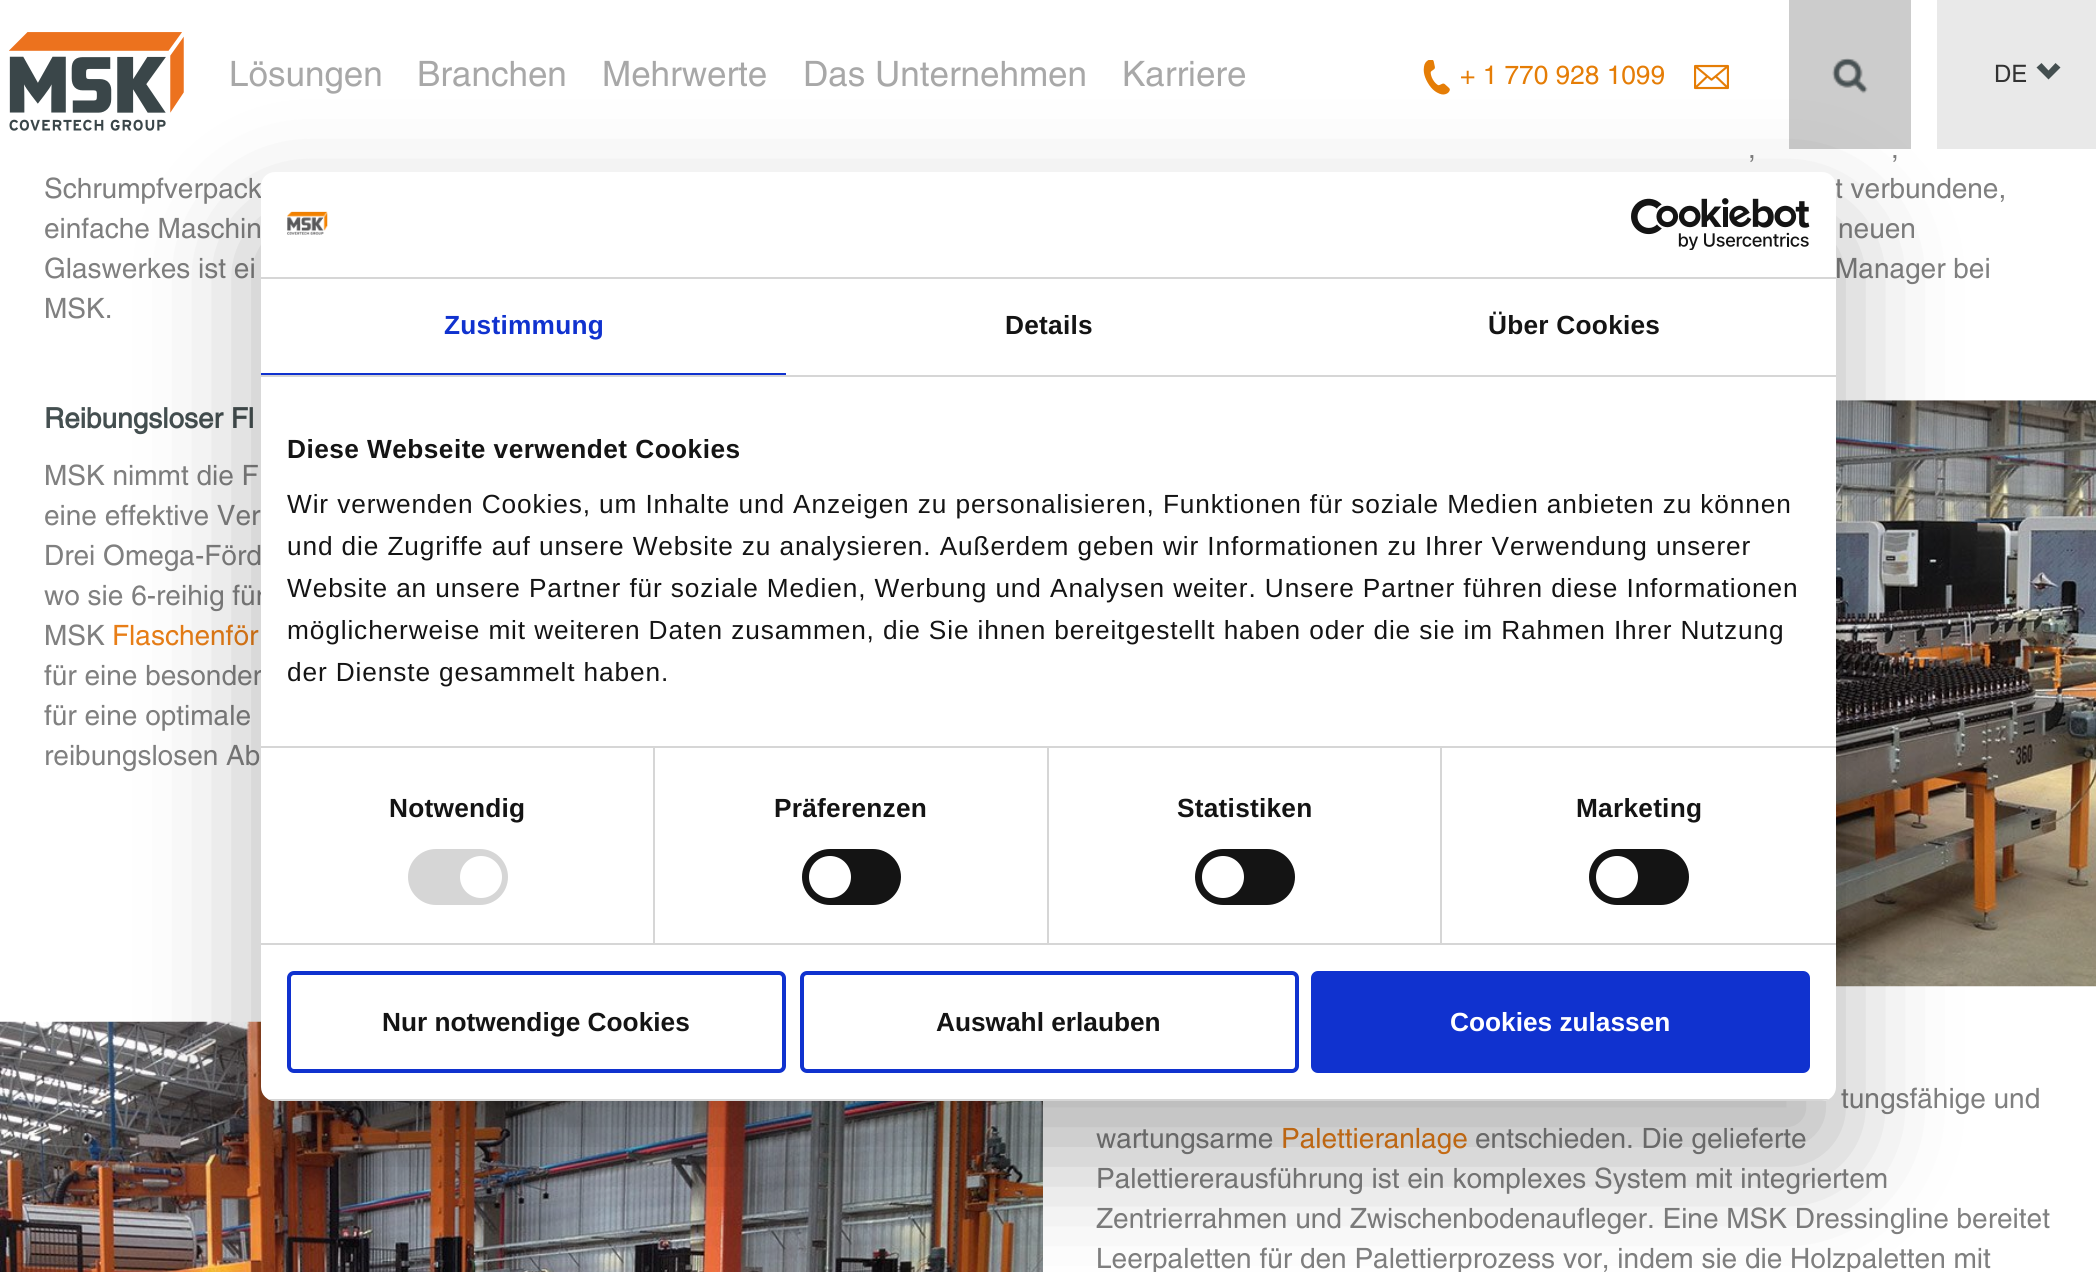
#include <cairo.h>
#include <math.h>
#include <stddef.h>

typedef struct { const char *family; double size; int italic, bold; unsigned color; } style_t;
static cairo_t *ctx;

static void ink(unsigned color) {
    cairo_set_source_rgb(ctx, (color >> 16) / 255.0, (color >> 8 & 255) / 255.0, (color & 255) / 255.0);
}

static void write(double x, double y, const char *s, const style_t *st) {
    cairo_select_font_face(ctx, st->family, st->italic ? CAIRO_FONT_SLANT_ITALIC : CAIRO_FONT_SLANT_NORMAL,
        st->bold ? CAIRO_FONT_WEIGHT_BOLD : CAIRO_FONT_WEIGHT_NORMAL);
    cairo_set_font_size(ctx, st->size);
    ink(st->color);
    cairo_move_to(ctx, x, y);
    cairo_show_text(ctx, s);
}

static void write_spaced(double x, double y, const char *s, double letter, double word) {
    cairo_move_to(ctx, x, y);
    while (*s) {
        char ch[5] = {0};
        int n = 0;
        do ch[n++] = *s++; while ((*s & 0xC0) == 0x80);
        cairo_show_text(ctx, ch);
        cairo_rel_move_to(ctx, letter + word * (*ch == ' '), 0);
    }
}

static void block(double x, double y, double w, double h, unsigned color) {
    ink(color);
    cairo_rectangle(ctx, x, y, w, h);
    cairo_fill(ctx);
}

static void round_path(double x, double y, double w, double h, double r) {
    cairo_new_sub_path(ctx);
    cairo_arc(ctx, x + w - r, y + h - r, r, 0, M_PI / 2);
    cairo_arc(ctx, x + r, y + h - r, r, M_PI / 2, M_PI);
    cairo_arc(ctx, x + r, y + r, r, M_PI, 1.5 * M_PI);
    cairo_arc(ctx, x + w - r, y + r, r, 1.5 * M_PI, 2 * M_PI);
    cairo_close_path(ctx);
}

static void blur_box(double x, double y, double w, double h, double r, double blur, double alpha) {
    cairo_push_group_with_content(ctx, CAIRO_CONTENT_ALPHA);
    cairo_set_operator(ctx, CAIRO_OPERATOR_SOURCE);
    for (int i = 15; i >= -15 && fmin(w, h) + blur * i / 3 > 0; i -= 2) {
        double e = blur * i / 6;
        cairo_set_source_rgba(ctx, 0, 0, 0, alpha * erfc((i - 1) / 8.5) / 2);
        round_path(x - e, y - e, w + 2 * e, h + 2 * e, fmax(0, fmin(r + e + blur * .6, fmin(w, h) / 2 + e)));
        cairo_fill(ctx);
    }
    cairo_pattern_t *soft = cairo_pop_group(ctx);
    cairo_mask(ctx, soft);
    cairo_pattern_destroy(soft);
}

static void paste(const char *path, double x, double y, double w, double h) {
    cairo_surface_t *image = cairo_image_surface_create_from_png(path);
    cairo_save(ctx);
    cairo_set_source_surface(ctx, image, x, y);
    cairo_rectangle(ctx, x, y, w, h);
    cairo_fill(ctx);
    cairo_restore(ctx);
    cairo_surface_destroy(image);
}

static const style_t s1 = {"Helvetica", 35, 0, 0, 0xa8a8a8};
static const style_t s2 = {"Helvetica", 26.25, 0, 0, 0xe57d06};
static const style_t s3 = {"Helvetica", 24, 0, 0, 0x333333};
static const style_t s4 = {"Helvetica", 28, 0, 0, 0x808080};
static const style_t s5 = {"Helvetica", 28, 0, 1, 0x444f50};
static const style_t s6 = {"Helvetica", 28, 0, 0, 0xe87e17};
static const style_t s7 = {"Liberation Sans", 26.25, 0, 1, 0x141414};
static const style_t s8 = {"Liberation Sans", 26.25, 0, 1, 0xffffff};

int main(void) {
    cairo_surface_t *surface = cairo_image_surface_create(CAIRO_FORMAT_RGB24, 2096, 1272);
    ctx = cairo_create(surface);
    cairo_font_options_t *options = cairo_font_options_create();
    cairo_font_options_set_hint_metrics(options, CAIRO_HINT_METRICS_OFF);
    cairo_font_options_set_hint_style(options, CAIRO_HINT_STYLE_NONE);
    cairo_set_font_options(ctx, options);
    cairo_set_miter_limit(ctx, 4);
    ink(0xffffff);
    cairo_paint(ctx);
    paste("pic1.png", 9, 32, 175, 99);
    write(229, 86, "Lösungen", &s1);
    write(417, 86, "Branchen", &s1);
    write(602, 86, "Mehrwerte", &s1);
    write(803, 86, "Das Unternehmen", &s1);
    write(1122, 86, "Karriere", &s1);
    paste("pic2.png", 1423, 60, 27, 35);
    write(1460, 84, "+ 1 770 928 1099", &s2);
    paste("pic3.png", 1694, 64, 35, 26);
    block(1789, 0, 122, 149, 0xcccccc);
    paste("pic4.png", 1832, 58, 36, 36);
    block(1937, 0, 159, 149, 0xe9e9e9);
    write(1994, 82, "DE", &s3);
    ink(0x444f50);
    cairo_new_path(ctx);
    cairo_move_to(ctx, 2036.5, 67.5);
    cairo_line_to(ctx, 2048.5, 79.5);
    cairo_line_to(ctx, 2060.5, 67.5);
    cairo_line_to(ctx, 2055.5, 63);
    cairo_line_to(ctx, 2048.5, 70.5);
    cairo_line_to(ctx, 2041.5, 63);
    cairo_close_path(ctx);
    cairo_fill(ctx);
    write(1748, 158, ",", &s4);
    write(1891, 158, ",", &s4);
    write(44, 198, "Schrumpfverpack", &s4);
    write(1835, 198, "t verbundene,", &s4);
    write(44, 238, "einfache Maschin", &s4);
    write(1838, 238, "neuen", &s4);
    write(44, 278, "Glaswerkes ist ei", &s4);
    write(1835, 278, "Manager bei", &s4);
    write(44, 318, "MSK.", &s4);
    write(44, 428, "Reibungsloser Fl", &s5);
    write(44, 485, "MSK nimmt die F", &s4);
    write(44, 525, "eine effektive Ver", &s4);
    write(44, 565, "Drei Omega-Förd", &s4);
    write(44, 605, "wo sie 6-reihig für", &s4);
    write(44, 645, "MSK", &s4);
    write(112, 645, "Flaschenför", &s6);
    write(44, 685, "für eine besonder", &s4);
    write(44, 725, "für eine optimale", &s4);
    write(44, 765, "reibungslosen Ab", &s4);
    paste("pic5.png", 1836, 400, 260, 587);
    paste("pic6.png", 0, 1021, 1043, 251);
    write(1841, 1108, "tungsfähige und", &s4);
    write(1096, 1148, "wartungsarme", &s4);
    write(1281, 1148, "Palettieranlage", &s6);
    write(1475, 1148, "entschieden. Die gelieferte", &s4);
    write(1096, 1188, "Palettiererausführung ist ein komplexes System mit integriertem", &s4);
    write(1096, 1228, "Zentrierrahmen und Zwischenbodenaufleger. Eine MSK Dressingline bereitet", &s4);
    write(1096, 1268, "Leerpaletten für den Palettierprozess vor, indem sie die Holzpaletten mit", &s4);
    ink(0x000000);
    blur_box(261, 228, 1575, 929, 14, 59.5, 0.3);
    ink(0xffffff);
    round_path(261, 172, 1575, 929, 14);
    cairo_fill(ctx);
    block(261, 277, 1575, 2, 0xd6d6d6);
    paste("pic7.png", 287, 211, 41, 24);
    paste("pic8.png", 1631, 198, 179, 52);
    block(261, 375, 1575, 2, 0xd6d6d6);
    block(261, 373, 525, 2, 0x1032cf);
    cairo_select_font_face(ctx, "Liberation Sans", CAIRO_FONT_SLANT_NORMAL, CAIRO_FONT_WEIGHT_BOLD);
    cairo_set_font_size(ctx, 26.25);
    write_spaced(444, 334, "Zustimmung", 0.25, 0);
    ink(0x141414);
    write_spaced(1005, 334, "Details", 0.25, 0);
    write_spaced(1488, 334, "Über Cookies", 0.25, 0);
    block(653, 747, 2, 196, 0xd6d6d6);
    block(1047, 747, 2, 196, 0xd6d6d6);
    block(1440, 747, 2, 196, 0xd6d6d6);
    block(261, 746, 1575, 2, 0xd6d6d6);
    ink(0x141414);
    write_spaced(287, 458, "Diese Webseite verwendet Cookies", 0.45, 0);
    cairo_select_font_face(ctx, "Liberation Sans", CAIRO_FONT_SLANT_NORMAL, CAIRO_FONT_WEIGHT_NORMAL);
    write_spaced(287, 513, "Wir verwenden Cookies, um Inhalte und Anzeigen zu personalisieren, Funktionen für soziale Medien anbieten zu können", 0.88, 0);
    write_spaced(287, 555, "und die Zugriffe auf unsere Website zu analysieren. Außerdem geben wir Informationen zu Ihrer Verwendung unserer", 0.88, 0);
    write_spaced(287, 597, "Website an unsere Partner für soziale Medien, Werbung und Analysen weiter. Unsere Partner führen diese Informationen", 0.88, 0);
    write_spaced(287, 639, "möglicherweise mit weiteren Daten zusammen, die Sie ihnen bereitgestellt haben oder die sie im Rahmen Ihrer Nutzung", 0.88, 0);
    write_spaced(287, 681, "der Dienste gesammelt haben.", 0.88, 0);
    block(261, 943, 1575, 2, 0xd6d6d6);
    cairo_select_font_face(ctx, "Liberation Sans", CAIRO_FONT_SLANT_NORMAL, CAIRO_FONT_WEIGHT_BOLD);
    ink(0x141414);
    write_spaced(389, 817, "Notwendig", 0.25, 0);
    ink(0xd6d6d6);
    round_path(408, 849, 100, 56, 28);
    cairo_fill(ctx);
    ink(0xffffff);
    cairo_arc(ctx, 481, 877, 21, 0, 2 * M_PI);
    cairo_fill(ctx);
    ink(0x141414);
    write_spaced(774, 817, "Präferenzen", 0.25, 0);
    round_path(802, 849, 99, 56, 28);
    cairo_fill(ctx);
    ink(0xffffff);
    cairo_arc(ctx, 830, 877, 21, 0, 2 * M_PI);
    cairo_fill(ctx);
    ink(0x141414);
    write_spaced(1177, 817, "Statistiken", 0.25, 0);
    round_path(1195, 849, 100, 56, 28);
    cairo_fill(ctx);
    ink(0xffffff);
    cairo_arc(ctx, 1223, 877, 21, 0, 2 * M_PI);
    cairo_fill(ctx);
    ink(0x141414);
    write_spaced(1576, 817, "Marketing", 0.25, 0);
    round_path(1589, 849, 100, 56, 28);
    cairo_fill(ctx);
    ink(0xffffff);
    cairo_arc(ctx, 1617, 877, 21, 0, 2 * M_PI);
    cairo_fill(ctx);
    cairo_save(ctx);
    round_path(261, 172, 1575, 929, 14);
    cairo_clip(ctx);
    block(261, 1099, 1575, 2, 0xd6d6d6);
    cairo_restore(ctx);
    round_path(289, 973, 495, 98, 5);
    ink(0x1032cf);
    cairo_set_line_width(ctx, 4);
    cairo_stroke(ctx);
    write(382, 1031, "Nur notwendige Cookies", &s7);
    round_path(802, 973, 495, 98, 5);
    ink(0x1032cf);
    cairo_stroke(ctx);
    write(936, 1031, "Auswahl erlauben", &s7);
    ink(0x1032cf);
    round_path(1313, 973, 495, 98, 5);
    cairo_fill_preserve(ctx);
    cairo_stroke(ctx);
    write(1450, 1031, "Cookies zulassen", &s8);
    cairo_surface_write_to_png(surface, "screenshot.png");
    cairo_font_options_destroy(options);
    cairo_destroy(ctx);
    cairo_surface_destroy(surface);
    return 0;
}
